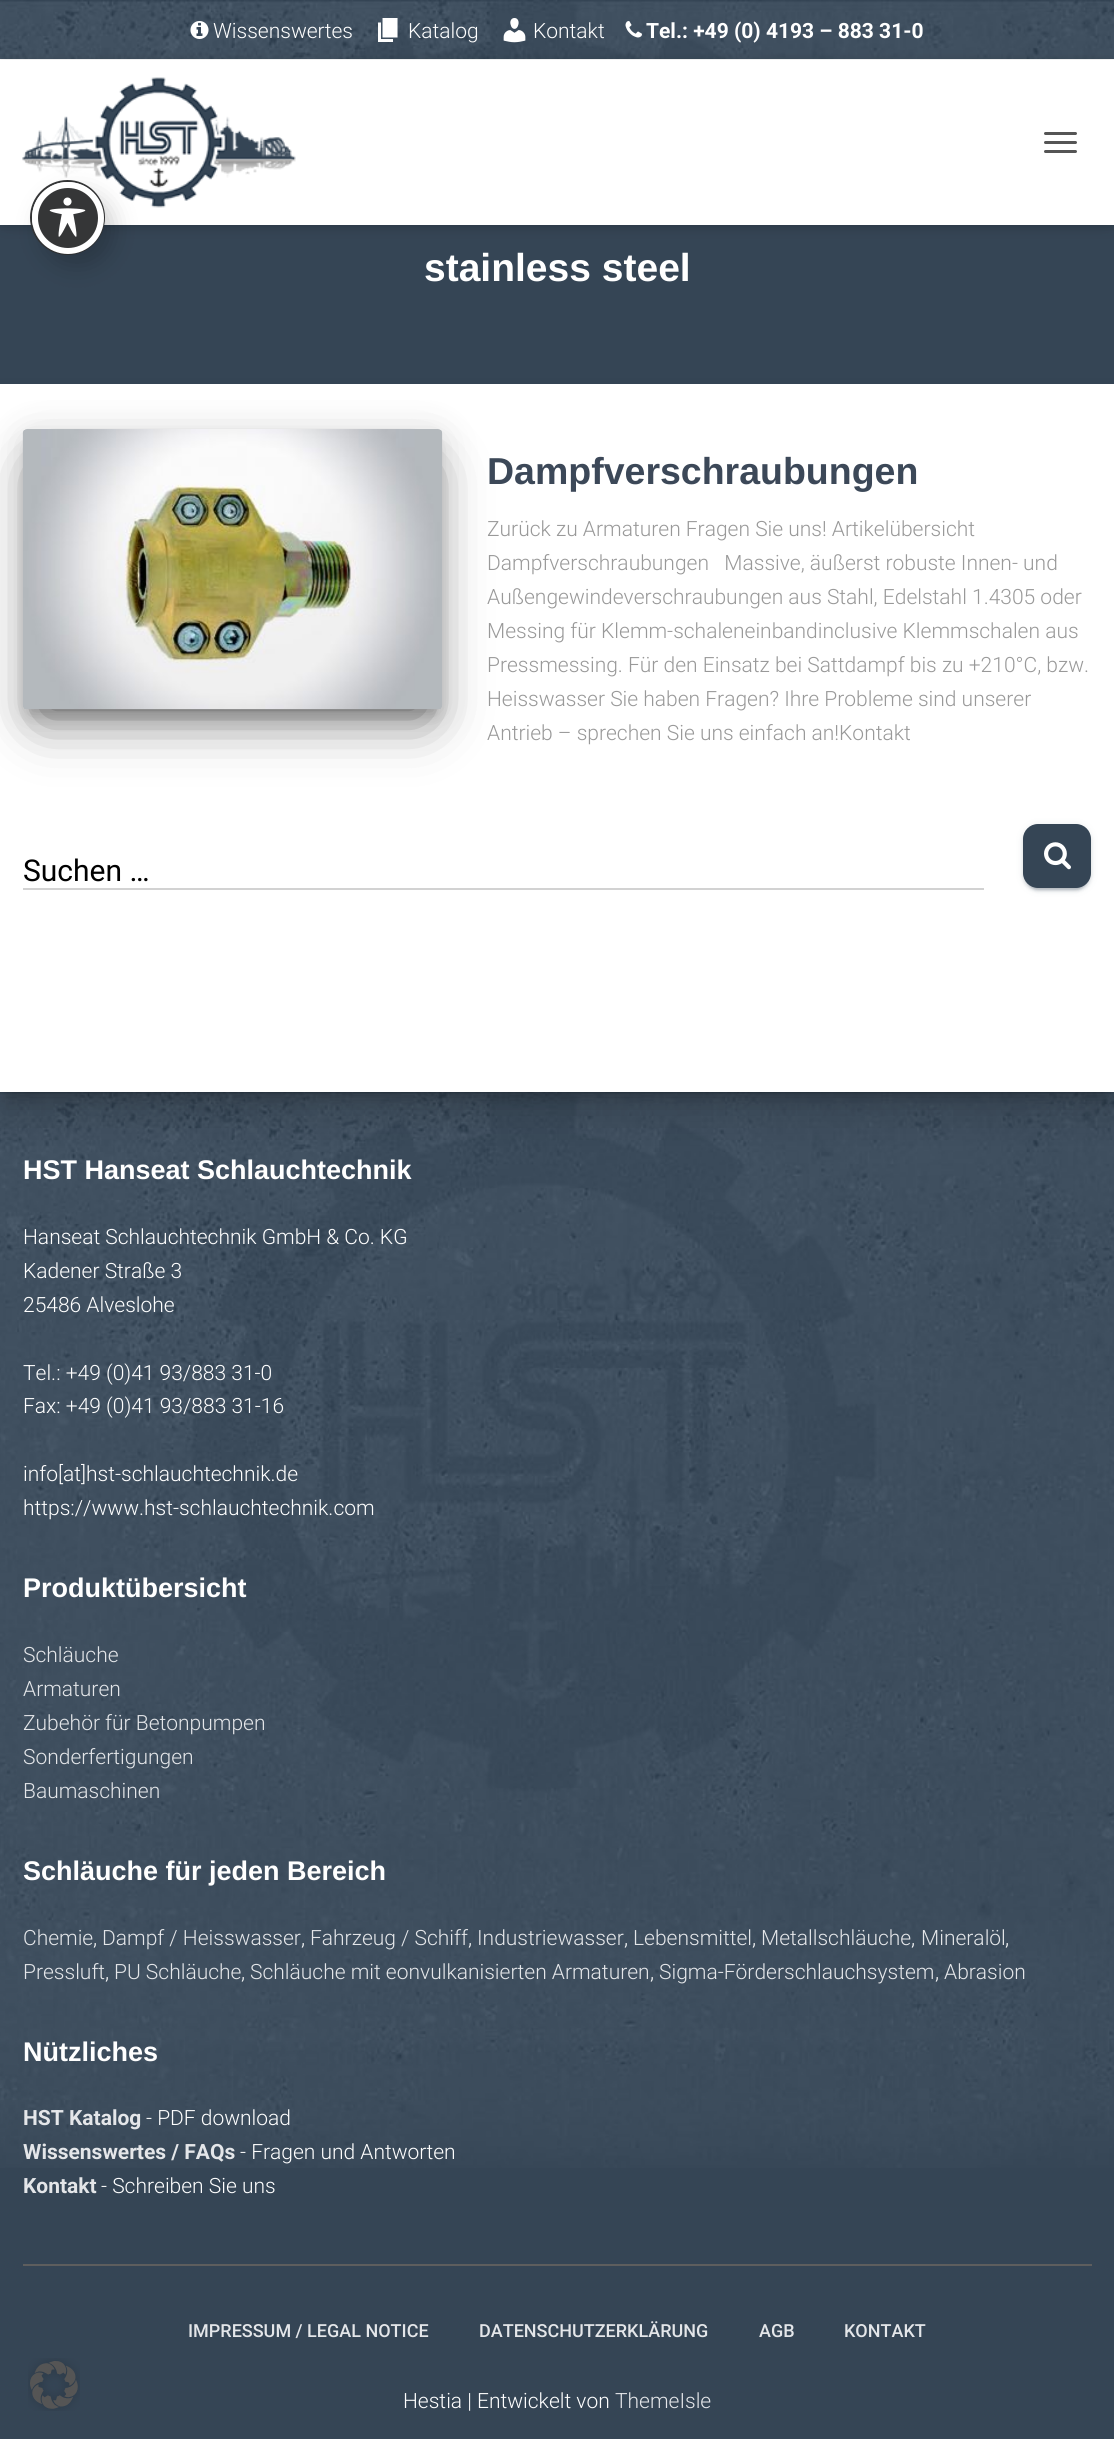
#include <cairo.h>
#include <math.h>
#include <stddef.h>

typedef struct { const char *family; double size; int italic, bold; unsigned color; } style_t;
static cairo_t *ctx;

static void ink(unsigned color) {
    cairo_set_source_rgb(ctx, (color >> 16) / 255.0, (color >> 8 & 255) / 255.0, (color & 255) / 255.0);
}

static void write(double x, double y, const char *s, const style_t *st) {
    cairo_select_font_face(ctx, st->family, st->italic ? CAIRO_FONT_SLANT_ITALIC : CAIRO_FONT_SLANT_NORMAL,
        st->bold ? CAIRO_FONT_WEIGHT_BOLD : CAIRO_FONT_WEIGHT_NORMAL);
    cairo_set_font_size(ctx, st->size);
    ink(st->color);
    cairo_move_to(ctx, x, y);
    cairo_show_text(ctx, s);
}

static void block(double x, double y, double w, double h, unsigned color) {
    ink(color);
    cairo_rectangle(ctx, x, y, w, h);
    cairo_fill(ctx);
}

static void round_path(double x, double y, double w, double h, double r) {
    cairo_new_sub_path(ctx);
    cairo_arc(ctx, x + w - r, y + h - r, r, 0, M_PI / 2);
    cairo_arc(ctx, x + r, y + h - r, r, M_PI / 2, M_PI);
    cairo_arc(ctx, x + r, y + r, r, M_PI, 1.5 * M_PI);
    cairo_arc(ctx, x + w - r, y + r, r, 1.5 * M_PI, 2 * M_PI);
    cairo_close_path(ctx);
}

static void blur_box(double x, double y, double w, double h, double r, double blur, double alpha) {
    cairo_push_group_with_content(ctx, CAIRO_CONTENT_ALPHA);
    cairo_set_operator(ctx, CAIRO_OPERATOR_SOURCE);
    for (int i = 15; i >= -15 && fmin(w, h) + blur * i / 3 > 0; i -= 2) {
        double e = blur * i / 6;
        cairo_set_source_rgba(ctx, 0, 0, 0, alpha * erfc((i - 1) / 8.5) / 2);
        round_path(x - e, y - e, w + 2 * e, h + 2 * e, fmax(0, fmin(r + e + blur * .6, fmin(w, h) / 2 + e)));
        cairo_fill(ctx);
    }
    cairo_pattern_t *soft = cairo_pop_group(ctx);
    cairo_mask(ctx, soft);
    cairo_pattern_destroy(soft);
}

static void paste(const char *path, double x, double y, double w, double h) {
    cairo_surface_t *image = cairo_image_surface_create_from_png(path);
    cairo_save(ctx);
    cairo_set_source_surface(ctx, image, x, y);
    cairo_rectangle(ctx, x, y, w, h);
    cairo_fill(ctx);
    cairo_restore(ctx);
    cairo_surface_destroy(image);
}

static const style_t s1 = {"Roboto Light", 21, 0, 0, 0xffffff};
static const style_t s2 = {"Roboto", 21, 0, 1, 0xffffff};
static const style_t s3 = {"Liberation Sans", 39, 0, 1, 0xffffff};
static const style_t s4 = {"Liberation Sans", 37.5, 0, 1, 0x3c4858};
static const style_t s5 = {"Roboto Light", 21, 0, 0, 0x999999};
static const style_t s6 = {"Roboto", 30, 0, 0, 0x000000};
static const style_t s7 = {"Liberation Sans", 27, 0, 1, 0xffffff};
static const style_t s8 = {"Roboto Light", 21, 0, 0, 0xe4e6e9};
static const style_t s9 = {"Roboto", 21, 0, 1, 0xe4e6e9};
static const style_t s10 = {"Roboto Medium", 18, 0, 0, 0xe4e6e9};

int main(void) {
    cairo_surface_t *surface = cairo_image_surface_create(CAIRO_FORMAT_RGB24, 1114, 2439);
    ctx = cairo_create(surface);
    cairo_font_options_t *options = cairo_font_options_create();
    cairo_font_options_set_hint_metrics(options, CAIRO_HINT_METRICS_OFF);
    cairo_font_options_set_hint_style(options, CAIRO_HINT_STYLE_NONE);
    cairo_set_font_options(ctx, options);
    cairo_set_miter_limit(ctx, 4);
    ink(0x354555);
    cairo_paint(ctx);
    paste("pic1.png", 0, 0, 1114, 59);
    block(0, 59, 1114, 1, 0xffffff);
    paste("pic2.png", 190, 21, 19, 18);
    write(213, 38, "Wissenswertes", &s1);
    paste("pic3.png", 378, 18, 20, 24);
    write(408, 38, "Katalog", &s1);
    paste("pic4.png", 503, 18, 23, 25);
    write(533, 38, "Kontakt", &s1);
    paste("pic5.png", 625, 21, 17, 17);
    write(646, 38, "Tel.: +49 (0) 4193 – 883 31-0", &s2);
    ink(0x000000);
    blur_box(0, 62, 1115, 165, 0, 7.5, 0.12);
    blur_box(9, 71, 1097, 147, 0, 7.5, 0.42);
    block(0, 60, 1114, 165, 0xffffff);
    paste("pic6.png", 22, 77, 274, 131);
    ink(0x555555);
    round_path(1044, 132, 33, 3, 1.5);
    cairo_fill(ctx);
    round_path(1044, 141, 33, 3, 1.5);
    cairo_fill(ctx);
    round_path(1044, 150, 33, 3, 1.5);
    cairo_fill(ctx);
    write(424, 281, "stainless steel", &s3);
    paste("pic9.png", 0, 1092, 1114, 1076);
    ink(0x000000);
    blur_box(8, 404, 1099, 693, 0, 7.5, 0.2);
    blur_box(-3, 405, 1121, 714, 0, 18, 0.14);
    block(0, 384, 1114, 708, 0xffffff);
    ink(0x000000);
    blur_box(30, 449, 405, 265, 0, 7.5, 0.2);
    blur_box(23, 435, 420, 281, 5, 19, 0.12);
    blur_box(41, 471, 384, 245, 0, 28.5, 0.56);
    paste("pic7.png", 22, 429, 421, 281);
    write(487, 484, "Dampfverschraubungen", &s4);
    write(487, 536, "Zurück zu Armaturen Fragen Sie uns! Artikelübersicht", &s5);
    write(487, 570, "Dampfverschraubungen   Massive, äußerst robuste Innen- und", &s5);
    write(487, 604, "Außengewindeverschraubungen aus Stahl, Edelstahl 1.4305 oder", &s5);
    write(487, 638, "Messing für Klemm-schaleneinbandinclusive Klemmschalen aus", &s5);
    write(487, 672, "Pressmessing. Für den Einsatz bei Sattdampf bis zu +210°C, bzw.", &s5);
    write(487, 706, "Heisswasser Sie haben Fragen? Ihre Probleme sind unserer", &s5);
    write(487, 740, "Antrieb – sprechen Sie uns einfach an!Kontakt", &s5);
    write(23, 881, "Suchen …", &s6);
    block(23, 888, 961, 2, 0xd2d2d2);
    ink(0x354555);
    blur_box(1023, 825, 68, 65, 15, 4, 0.12);
    blur_box(1026, 831, 62, 59, 12, 1, 0.2);
    blur_box(1023, 827, 68, 64, 15, 1.5, 0.14);
    ink(0x354555);
    round_path(1023, 824, 68, 64, 15);
    cairo_fill(ctx);
    paste("pic8.png", 1044, 842, 27, 28);
    write(23, 1179, "HST Hanseat Schlauchtechnik", &s7);
    write(23, 1244, "Hanseat Schlauchtechnik GmbH & Co. KG", &s1);
    write(23, 1278, "Kadener Straße 3", &s1);
    write(23, 1312, "25486 Alveslohe", &s1);
    write(23, 1380, "Tel.: +49 (0)41 93/883 31-0", &s1);
    write(23, 1413, "Fax: +49 (0)41 93/883 31-16", &s1);
    write(23, 1481, "info[at]hst-schlauchtechnik.de", &s1);
    write(23, 1515, "https://www.hst-schlauchtechnik.com", &s1);
    write(23, 1597, "Produktübersicht", &s7);
    write(23, 1662, "Schläuche", &s8);
    write(23, 1696, "Armaturen", &s8);
    write(23, 1730, "Zubehör für Betonpumpen", &s8);
    write(23, 1764, "Sonderfertigungen", &s8);
    write(23, 1798, "Baumaschinen", &s8);
    write(23, 1880, "Schläuche für jeden Bereich", &s7);
    write(23, 1945, "Chemie", &s8);
    write(93, 1945, ",", &s1);
    write(102, 1945, "Dampf / Heisswasser", &s8);
    write(301, 1945, ",", &s1);
    write(468, 1945, ",", &s1);
    write(310, 1945, "Fahrzeug / Schiff", &s8);
    write(477, 1945, "Industriewasser", &s8);
    write(624, 1945, ",", &s1);
    write(633, 1945, "Lebensmittel", &s8);
    write(752, 1945, ",", &s1);
    write(761, 1945, "Metallschläuche", &s8);
    write(911, 1945, ",", &s1);
    write(921, 1945, "Mineralöl", &s8);
    write(1005, 1945, ",", &s1);
    write(23, 1979, "Pressluft", &s8);
    write(105, 1979, ",", &s1);
    write(114, 1979, "PU Schläuche", &s8);
    write(241, 1979, ",", &s1);
    write(250, 1979, "Schläuche mit eonvulkanisierten Armaturen", &s8);
    write(650, 1979, ",", &s1);
    write(659, 1979, "Sigma-Förderschlauchsystem", &s8);
    write(935, 1979, ",", &s1);
    write(944, 1979, "Abrasion", &s8);
    write(23, 2061, "Nützliches", &s7);
    write(23, 2125, "HST Katalog", &s9);
    write(146, 2125, "- PDF download", &s1);
    write(23, 2159, "Wissenswertes / FAQs", &s9);
    write(240, 2159, "- Fragen und Antworten", &s1);
    write(23, 2193, "Kontakt", &s9);
    write(101, 2193, "- Schreiben Sie uns", &s1);
    block(23, 2264, 1069, 2, 0x5e5e5e);
    write(188, 2337, "IMPRESSUM / LEGAL NOTICE", &s10);
    write(479, 2337, "DATENSCHUTZERKLÄRUNG", &s10);
    write(759, 2337, "AGB", &s10);
    write(844, 2337, "KONTAKT", &s10);
    write(403, 2408, "Hestia | Entwickelt von", &s1);
    write(615, 2408, "ThemeIsle", &s8);
    cairo_new_path(ctx);
    cairo_arc(ctx, 67.5, 217.5, 36.5, 0, 2 * M_PI);
    ink(0x353637);
    cairo_stroke(ctx);
    ink(0x000000);
    blur_box(41, 194, 72, 72, 36, 12, 0.2);
    ink(0x353637);
    cairo_arc(ctx, 68, 218, 33, 0, 2 * M_PI);
    cairo_fill_preserve(ctx);
    ink(0xffffff);
    cairo_set_line_width(ctx, 6);
    cairo_stroke(ctx);
    paste("pic10.png", 49, 197, 37, 40);
    paste("pic11.png", 28, 2358, 52, 53);
    cairo_surface_write_to_png(surface, "screenshot.png");
    cairo_font_options_destroy(options);
    cairo_destroy(ctx);
    cairo_surface_destroy(surface);
    return 0;
}
